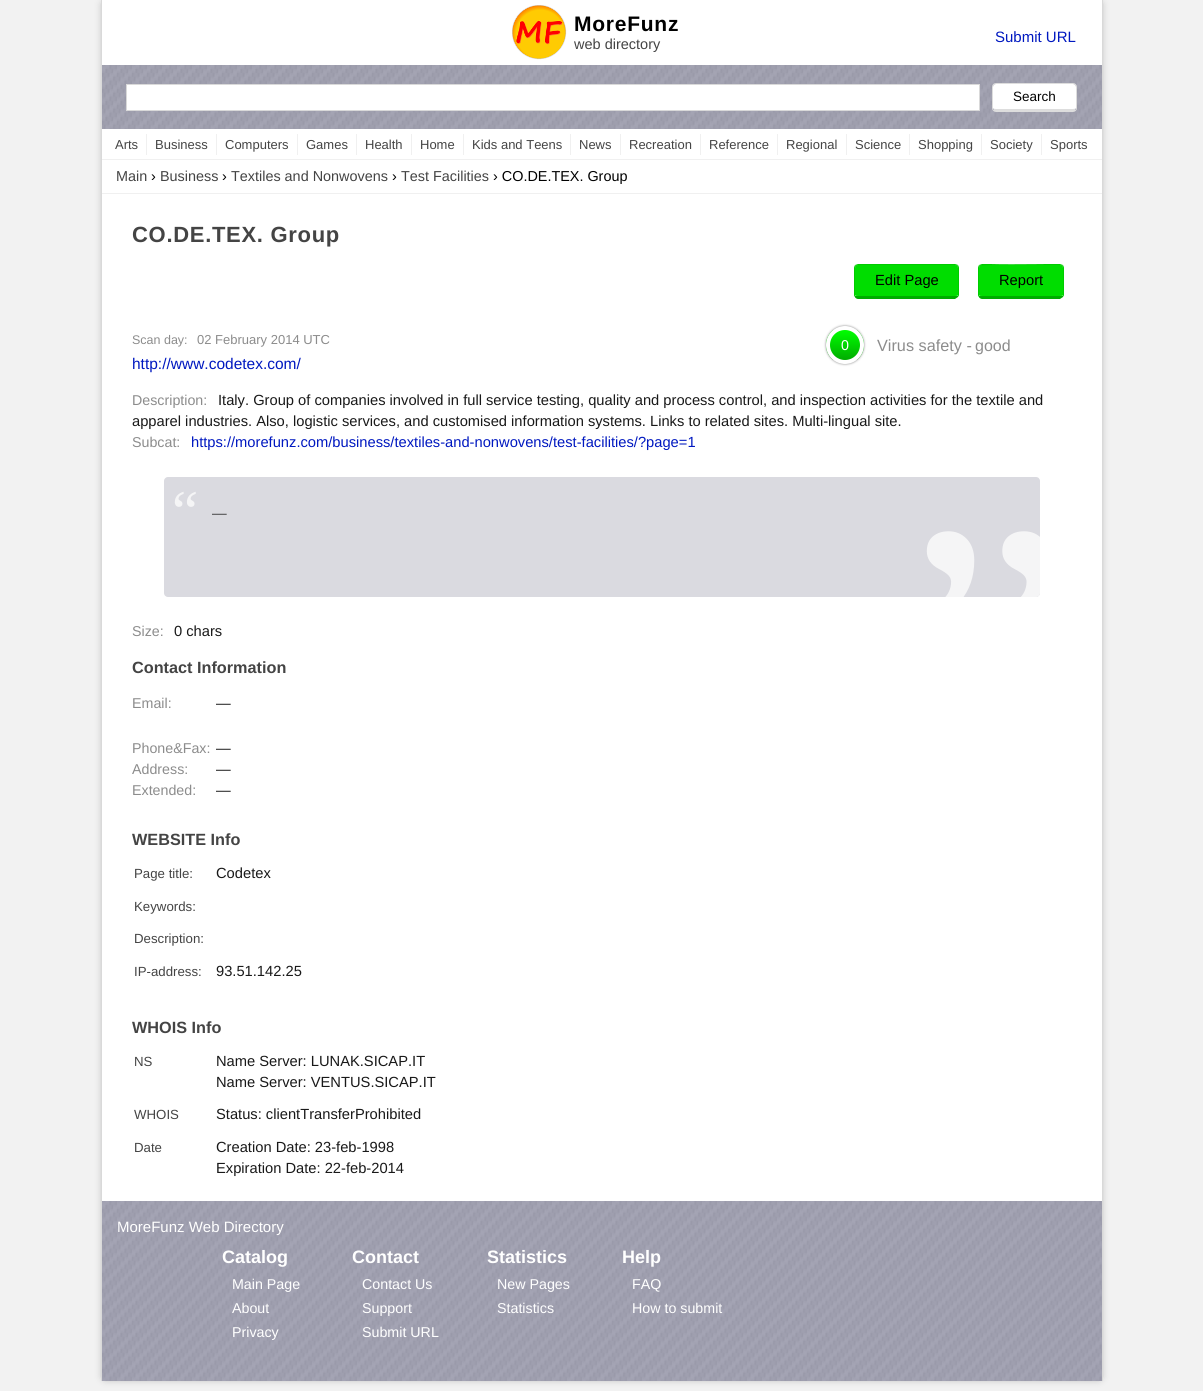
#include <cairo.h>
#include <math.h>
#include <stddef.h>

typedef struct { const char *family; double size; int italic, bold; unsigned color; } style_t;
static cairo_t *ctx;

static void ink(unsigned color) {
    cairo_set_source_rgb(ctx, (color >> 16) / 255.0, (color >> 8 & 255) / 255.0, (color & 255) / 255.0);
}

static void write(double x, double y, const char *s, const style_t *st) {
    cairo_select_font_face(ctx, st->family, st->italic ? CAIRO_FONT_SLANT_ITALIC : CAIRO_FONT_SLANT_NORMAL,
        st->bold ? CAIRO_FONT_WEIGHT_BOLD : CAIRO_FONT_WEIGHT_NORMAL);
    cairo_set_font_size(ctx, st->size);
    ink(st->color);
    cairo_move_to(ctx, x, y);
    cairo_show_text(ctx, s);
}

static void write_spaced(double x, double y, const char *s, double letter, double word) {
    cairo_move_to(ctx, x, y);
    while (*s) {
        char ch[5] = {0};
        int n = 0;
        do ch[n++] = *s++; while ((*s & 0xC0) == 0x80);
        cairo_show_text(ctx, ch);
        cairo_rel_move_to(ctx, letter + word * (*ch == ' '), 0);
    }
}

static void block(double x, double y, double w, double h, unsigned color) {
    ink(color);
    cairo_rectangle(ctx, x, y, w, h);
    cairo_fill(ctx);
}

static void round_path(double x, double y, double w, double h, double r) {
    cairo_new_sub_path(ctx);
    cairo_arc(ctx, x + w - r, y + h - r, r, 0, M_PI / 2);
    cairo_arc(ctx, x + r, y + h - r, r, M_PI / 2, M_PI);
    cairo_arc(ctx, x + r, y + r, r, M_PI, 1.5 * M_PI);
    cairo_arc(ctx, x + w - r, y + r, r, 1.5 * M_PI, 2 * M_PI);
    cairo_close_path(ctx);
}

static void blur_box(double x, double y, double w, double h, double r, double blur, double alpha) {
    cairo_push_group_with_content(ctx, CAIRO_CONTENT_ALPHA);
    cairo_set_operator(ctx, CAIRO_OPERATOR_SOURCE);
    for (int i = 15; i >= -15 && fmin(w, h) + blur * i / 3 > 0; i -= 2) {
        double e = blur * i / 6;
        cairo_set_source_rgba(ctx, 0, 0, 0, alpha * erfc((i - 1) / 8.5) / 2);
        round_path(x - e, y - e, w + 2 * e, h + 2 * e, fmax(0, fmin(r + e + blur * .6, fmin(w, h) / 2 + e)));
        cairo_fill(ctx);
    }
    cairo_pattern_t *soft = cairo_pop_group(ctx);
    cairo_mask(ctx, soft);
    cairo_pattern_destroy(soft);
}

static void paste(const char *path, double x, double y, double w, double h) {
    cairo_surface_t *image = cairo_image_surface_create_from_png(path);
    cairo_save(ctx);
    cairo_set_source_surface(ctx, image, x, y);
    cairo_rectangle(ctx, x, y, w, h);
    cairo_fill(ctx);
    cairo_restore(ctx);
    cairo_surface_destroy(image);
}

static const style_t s1 = {"Liberation Sans", 14.5, 0, 0, 0x444444};
static const style_t s2 = {"Liberation Sans", 15, 0, 0, 0x0018c0};
static const style_t s3 = {"Liberation Sans", 13.5, 0, 0, 0x000000};
static const style_t s4 = {"Liberation Sans", 13, 0, 0, 0x444444};
static const style_t s5 = {"Liberation Sans", 14.4, 0, 0, 0x444444};
static const style_t s6 = {"Liberation Sans", 14.4, 0, 0, 0x000000};
static const style_t s7 = {"Liberation Sans", 14.7, 0, 0, 0x000000};
static const style_t s8 = {"Liberation Sans", 12.5, 0, 0, 0x8c8c8c};
static const style_t s9 = {"Liberation Sans", 13, 0, 0, 0x8c8c8c};
static const style_t s10 = {"Liberation Sans", 14.25, 0, 0, 0xffffff};
static const style_t s11 = {"Liberation Sans", 16.25, 0, 0, 0x8c8c8c};
static const style_t s12 = {"Liberation Sans", 16, 0, 0, 0x8c8c8c};
static const style_t s13 = {"Liberation Sans", 15.5, 0, 0, 0x0018c0};
static const style_t s14 = {"Liberation Sans", 14.25, 0, 0, 0x8c8c8c};
static const style_t s15 = {"Liberation Sans", 14.7, 0, 0, 0x191919};
static const style_t s16 = {"Liberation Sans", 14.7, 0, 0, 0x0018c0};
static const style_t s17 = {"Liberation Serif", 59, 0, 0, 0xf5f5f6};
static const style_t s18 = {"Liberation Sans", 14.7, 0, 0, 0x444444};
static const style_t s19 = {"Liberation Serif", 368, 0, 0, 0xf5f5f6};
static const style_t s20 = {"Liberation Sans", 16.25, 0, 1, 0x444444};
static const style_t s21 = {"Liberation Sans", 13.25, 0, 0, 0x444444};
static const style_t s22 = {"Liberation Sans", 15, 0, 0, 0xffffff};
static const style_t s23 = {"Liberation Sans", 18, 0, 1, 0xffffff};

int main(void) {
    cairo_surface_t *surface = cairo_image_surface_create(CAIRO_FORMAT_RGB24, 1203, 1391);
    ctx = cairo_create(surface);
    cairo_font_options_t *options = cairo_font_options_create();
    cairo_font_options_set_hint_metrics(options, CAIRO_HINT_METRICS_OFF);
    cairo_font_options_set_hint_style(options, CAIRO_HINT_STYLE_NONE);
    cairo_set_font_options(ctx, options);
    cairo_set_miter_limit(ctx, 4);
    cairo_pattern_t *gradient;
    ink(0xf2f2f2);
    cairo_paint(ctx);
    ink(0x000000);
    blur_box(105, 4, 994, 1373, 0, 4.5, 0.52);
    block(102, 0, 1000, 1201, 0xffffff);
    block(1102, 0, 1, 1381, 0xd9d9d9);
    block(101, 0, 1, 1381, 0xd9d9d9);
    paste("pic1.png", 512, 5, 55, 55);
    cairo_select_font_face(ctx, "Liberation Sans", CAIRO_FONT_SLANT_NORMAL, CAIRO_FONT_WEIGHT_BOLD);
    cairo_set_font_size(ctx, 21);
    ink(0x000000);
    write_spaced(574, 31, "MoreFunz", 0.75, 0);
    write(574, 49, "web directory", &s1);
    write(995, 42, "Submit URL", &s2);
    block(102, 65, 1000, 64, 0xa0a0af);
    paste("pic2.png", 102, 65, 1000, 64);
    ink(0xffffff);
    cairo_rectangle(ctx, 126.5, 84.5, 853, 26);
    cairo_fill_preserve(ctx);
    ink(0xd9d9d9);
    cairo_set_line_width(ctx, 1);
    cairo_stroke(ctx);
    ink(0xffffff);
    cairo_new_path(ctx);
    cairo_move_to(ctx, 996, 84);
    cairo_line_to(ctx, 1073, 84);
    cairo_curve_to(ctx, 1075, 84, 1076, 85, 1076, 87);
    cairo_line_to(ctx, 1076, 108);
    cairo_curve_to(ctx, 1076, 109, 1075, 109, 1073, 109);
    cairo_line_to(ctx, 996, 109);
    cairo_curve_to(ctx, 994, 109, 993, 109, 993, 108);
    cairo_line_to(ctx, 993, 87);
    cairo_curve_to(ctx, 993, 85, 994, 84, 996, 84);
    cairo_close_path(ctx);
    cairo_fill(ctx);
    round_path(992.5, 83.5, 84, 28, 3.5);
    ink(0xdddddd);
    cairo_stroke(ctx);
    block(994, 109, 81, 2, 0xdddddd);
    write(1013, 101, "Search", &s3);
    block(102, 159, 1000, 1, 0xf0f0f0);
    block(146, 134, 1, 21, 0xf0f0f0);
    write(115, 149, "Arts", &s4);
    block(216, 134, 1, 21, 0xf0f0f0);
    write(155, 149, "Business", &s4);
    block(297, 134, 1, 21, 0xf0f0f0);
    write(225, 149, "Computers", &s4);
    block(356, 134, 1, 21, 0xf0f0f0);
    write(306, 149, "Games", &s4);
    block(411, 134, 1, 21, 0xf0f0f0);
    write(365, 149, "Health", &s4);
    block(463, 134, 1, 21, 0xf0f0f0);
    write(420, 149, "Home", &s4);
    block(570, 134, 1, 21, 0xf0f0f0);
    write(472, 149, "Kids and Teens", &s4);
    block(620, 134, 1, 21, 0xf0f0f0);
    write(579, 149, "News", &s4);
    block(700, 134, 1, 21, 0xf0f0f0);
    write(629, 149, "Recreation", &s4);
    block(777, 134, 1, 21, 0xf0f0f0);
    write(709, 149, "Reference", &s4);
    block(846, 134, 1, 21, 0xf0f0f0);
    write(786, 149, "Regional", &s4);
    block(909, 134, 1, 21, 0xf0f0f0);
    write(855, 149, "Science", &s4);
    block(981, 134, 1, 21, 0xf0f0f0);
    write(918, 149, "Shopping", &s4);
    block(1041, 134, 1, 21, 0xf0f0f0);
    write(990, 149, "Society", &s4);
    write(1050, 149, "Sports", &s4);
    block(102, 193, 1000, 1, 0xf0f0f0);
    write(116, 181, "Main", &s5);
    write(151, 181, "›", &s6);
    write(160, 181, "Business", &s5);
    write(222, 181, "›", &s6);
    write(231, 181, "Textiles and Nonwovens", &s5);
    write(392, 181, "›", &s6);
    write(401, 181, "Test Facilities", &s5);
    write(493, 181, "› CO.DE.TEX. Group", &s6);
    cairo_select_font_face(ctx, "Liberation Sans", CAIRO_FONT_SLANT_NORMAL, CAIRO_FONT_WEIGHT_BOLD);
    cairo_set_font_size(ctx, 22);
    ink(0x444444);
    write_spaced(132, 242, "CO.DE.TEX. Group", 0.7, 0);
    ink(0x00dd00);
    cairo_new_path(ctx);
    cairo_move_to(ctx, 858, 265);
    cairo_line_to(ctx, 955, 265);
    cairo_curve_to(ctx, 957, 265, 958, 266, 958, 268);
    cairo_line_to(ctx, 958, 295);
    cairo_curve_to(ctx, 958, 296, 957, 296, 955, 296);
    cairo_line_to(ctx, 858, 296);
    cairo_curve_to(ctx, 856, 296, 855, 296, 855, 295);
    cairo_line_to(ctx, 855, 268);
    cairo_curve_to(ctx, 855, 266, 856, 265, 858, 265);
    cairo_close_path(ctx);
    cairo_fill(ctx);
    ink(0x00cc00);
    cairo_new_path(ctx);
    cairo_move_to(ctx, 858, 264);
    cairo_line_to(ctx, 855, 265);
    cairo_line_to(ctx, 856, 266);
    cairo_line_to(ctx, 858, 265);
    cairo_line_to(ctx, 955, 265);
    cairo_line_to(ctx, 957, 266);
    cairo_line_to(ctx, 958, 265);
    cairo_line_to(ctx, 955, 264);
    cairo_close_path(ctx);
    cairo_fill(ctx);
    cairo_new_path(ctx);
    cairo_move_to(ctx, 959, 295);
    cairo_line_to(ctx, 959, 268);
    cairo_curve_to(ctx, 959, 267, 958.5, 266, 958, 265);
    cairo_line_to(ctx, 957, 266);
    cairo_line_to(ctx, 958, 267.5);
    cairo_line_to(ctx, 958, 295.5);
    cairo_line_to(ctx, 958.5, 297);
    cairo_close_path(ctx);
    cairo_fill(ctx);
    ink(0x00ac00);
    cairo_new_path(ctx);
    cairo_move_to(ctx, 858, 299);
    cairo_line_to(ctx, 955, 299);
    cairo_line_to(ctx, 958, 297);
    cairo_line_to(ctx, 958, 296);
    cairo_line_to(ctx, 955, 296);
    cairo_line_to(ctx, 858, 296);
    cairo_line_to(ctx, 855, 296);
    cairo_line_to(ctx, 855, 297);
    cairo_curve_to(ctx, 855, 298, 857, 299, 858, 299);
    cairo_close_path(ctx);
    cairo_fill(ctx);
    ink(0x00cc00);
    cairo_new_path(ctx);
    cairo_move_to(ctx, 854, 268);
    cairo_line_to(ctx, 854, 295);
    cairo_curve_to(ctx, 854, 295.5, 854, 296.5, 854.5, 297);
    cairo_line_to(ctx, 855, 295.5);
    cairo_line_to(ctx, 855, 267.5);
    cairo_line_to(ctx, 856, 266);
    cairo_line_to(ctx, 855, 265);
    cairo_curve_to(ctx, 854.5, 266, 854, 267, 854, 268);
    cairo_close_path(ctx);
    cairo_fill(ctx);
    write(875, 285, "Edit Page", &s7);
    ink(0x00dd00);
    cairo_new_path(ctx);
    cairo_move_to(ctx, 982, 265);
    cairo_line_to(ctx, 1060, 265);
    cairo_curve_to(ctx, 1062, 265, 1063, 266, 1063, 268);
    cairo_line_to(ctx, 1063, 295);
    cairo_curve_to(ctx, 1063, 296, 1062, 296, 1060, 296);
    cairo_line_to(ctx, 982, 296);
    cairo_curve_to(ctx, 980, 296, 979, 296, 979, 295);
    cairo_line_to(ctx, 979, 268);
    cairo_curve_to(ctx, 979, 266, 980, 265, 982, 265);
    cairo_close_path(ctx);
    cairo_fill(ctx);
    ink(0x00cc00);
    cairo_new_path(ctx);
    cairo_move_to(ctx, 982, 264);
    cairo_line_to(ctx, 979, 265);
    cairo_line_to(ctx, 980, 266);
    cairo_curve_to(ctx, 982, 264, 1040, 265, 1047, 265);
    cairo_line_to(ctx, 1060, 265);
    cairo_line_to(ctx, 1062, 266);
    cairo_line_to(ctx, 1063, 265);
    cairo_line_to(ctx, 1060, 264);
    cairo_close_path(ctx);
    cairo_fill(ctx);
    cairo_new_path(ctx);
    cairo_move_to(ctx, 1064, 295);
    cairo_line_to(ctx, 1064, 268);
    cairo_curve_to(ctx, 1064, 267, 1063.5, 266, 1063, 265);
    cairo_line_to(ctx, 1062, 266);
    cairo_line_to(ctx, 1063, 267.5);
    cairo_line_to(ctx, 1063, 295.5);
    cairo_line_to(ctx, 1063.5, 297);
    cairo_close_path(ctx);
    cairo_fill(ctx);
    ink(0x00ac00);
    cairo_new_path(ctx);
    cairo_move_to(ctx, 982, 299);
    cairo_line_to(ctx, 1060, 299);
    cairo_line_to(ctx, 1063, 297);
    cairo_line_to(ctx, 1063, 296);
    cairo_line_to(ctx, 1061, 296);
    cairo_line_to(ctx, 995, 296);
    cairo_line_to(ctx, 982, 296);
    cairo_line_to(ctx, 979, 296);
    cairo_line_to(ctx, 979, 297);
    cairo_curve_to(ctx, 979, 298, 981, 299, 982, 299);
    cairo_close_path(ctx);
    cairo_fill(ctx);
    ink(0x00cc00);
    cairo_new_path(ctx);
    cairo_move_to(ctx, 978, 268);
    cairo_line_to(ctx, 978, 295);
    cairo_curve_to(ctx, 978, 295.5, 978, 296.5, 978.5, 297);
    cairo_line_to(ctx, 979, 295.5);
    cairo_line_to(ctx, 979, 267.5);
    cairo_line_to(ctx, 980, 266);
    cairo_line_to(ctx, 979, 265);
    cairo_curve_to(ctx, 978.5, 266, 978, 267, 978, 268);
    cairo_close_path(ctx);
    cairo_fill(ctx);
    write(999, 285, "Report", &s7);
    write(132, 344, "Scan day:", &s8);
    write(197, 344, "02 February 2014 UTC", &s9);
    ink(0x000000);
    blur_box(827, 327, 36, 36, 18, 1.5, 1);
    cairo_save(ctx);
    round_path(826, 326, 38, 38, 19);
    cairo_clip(ctx);
    gradient = cairo_pattern_create_linear(845, 360, 845, 330);
    cairo_pattern_add_color_stop_rgba(gradient, 0, 0, 0.675, 0, 1);
    cairo_pattern_add_color_stop_rgba(gradient, 1, 0, 1, 0, 1);
    cairo_set_source(ctx, gradient);
    cairo_pattern_destroy(gradient);
    cairo_rectangle(ctx, 826, 330, 38, 30);
    cairo_fill(ctx);
    cairo_restore(ctx);
    cairo_arc(ctx, 845, 345, 17, 0, 2 * M_PI);
    ink(0xffffff);
    cairo_set_line_width(ctx, 4);
    cairo_stroke(ctx);
    write(841, 350, "0", &s10);
    write(877, 351, "Virus safety -", &s11);
    write(975, 351, "good", &s12);
    write(132, 369, "http://www.codetex.com/", &s13);
    write(132, 405, "Description:", &s14);
    write(218, 405, "Italy. Group of companies involved in full service testing, quality and process control, and inspection activities for the textile and", &s15);
    write(132, 426, "apparel industries. Also, logistic services, and customised information systems. Links to related sites. Multi-lingual site.", &s15);
    write(132, 447, "Subcat:", &s14);
    write(191, 447, "https://morefunz.com/business/textiles-and-nonwovens/test-facilities/?page=1", &s16);
    ink(0xdadae0);
    round_path(164, 477, 876, 120, 4);
    cairo_fill(ctx);
    write(172, 531, "“", &s17);
    write(212, 518, "—", &s18);
    cairo_save(ctx);
    round_path(164, 477, 876, 120, 4);
    cairo_clip(ctx);
    write(904, 776, "”", &s19);
    cairo_restore(ctx);
    write(132, 636, "Size:", &s14);
    write(174, 636, "0 chars", &s15);
    write(132, 673, "Contact Information", &s20);
    write(132, 708, "Email:", &s14);
    write(216, 708, "—", &s15);
    write(132, 753, "Phone&Fax:", &s14);
    write(216, 753, "—", &s15);
    write(132, 774, "Address:", &s14);
    write(216, 774, "—", &s15);
    write(132, 795, "Extended:", &s14);
    write(216, 795, "—", &s15);
    cairo_save(ctx);
    cairo_rectangle(ctx, 132, 209, 940, 977);
    cairo_clip(ctx);
    write(132, 845, "WEBSITE Info", &s20);
    cairo_restore(ctx);
    write(134, 878, "Page title:", &s21);
    write(216, 878, "Codetex", &s15);
    write(134, 911, "Keywords:", &s21);
    write(134, 943, "Description:", &s21);
    write(134, 976, "IP-address:", &s21);
    write(216, 976, "93.51.142.25", &s15);
    cairo_save(ctx);
    cairo_rectangle(ctx, 132, 209, 940, 977);
    cairo_clip(ctx);
    write(132, 1033, "WHOIS Info", &s20);
    cairo_restore(ctx);
    write(134, 1066, "NS", &s21);
    write(216, 1066, "Name Server: LUNAK.SICAP.IT", &s15);
    write(216, 1087, "Name Server: VENTUS.SICAP.IT", &s15);
    write(134, 1119, "WHOIS", &s21);
    write(216, 1119, "Status: clientTransferProhibited", &s15);
    write(134, 1152, "Date", &s21);
    write(216, 1152, "Creation Date: 23-feb-1998", &s15);
    write(216, 1173, "Expiration Date: 22-feb-2014", &s15);
    block(102, 1201, 1000, 180, 0xa0a0b0);
    paste("pic3.png", 102, 1201, 1000, 180);
    write(117, 1232, "MoreFunz Web Directory", &s22);
    write(222, 1263, "Catalog", &s23);
    write(232, 1289, "Main Page", &s10);
    write(232, 1313, "About", &s10);
    write(232, 1337, "Privacy", &s10);
    write(352, 1263, "Contact", &s23);
    write(362, 1289, "Contact Us", &s10);
    write(362, 1313, "Support", &s10);
    write(362, 1337, "Submit URL", &s10);
    write(487, 1263, "Statistics", &s23);
    write(497, 1289, "New Pages", &s10);
    write(497, 1313, "Statistics", &s10);
    write(622, 1263, "Help", &s23);
    write(632, 1289, "FAQ", &s10);
    write(632, 1313, "How to submit", &s10);
    cairo_surface_write_to_png(surface, "screenshot.png");
    cairo_font_options_destroy(options);
    cairo_destroy(ctx);
    cairo_surface_destroy(surface);
    return 0;
}
